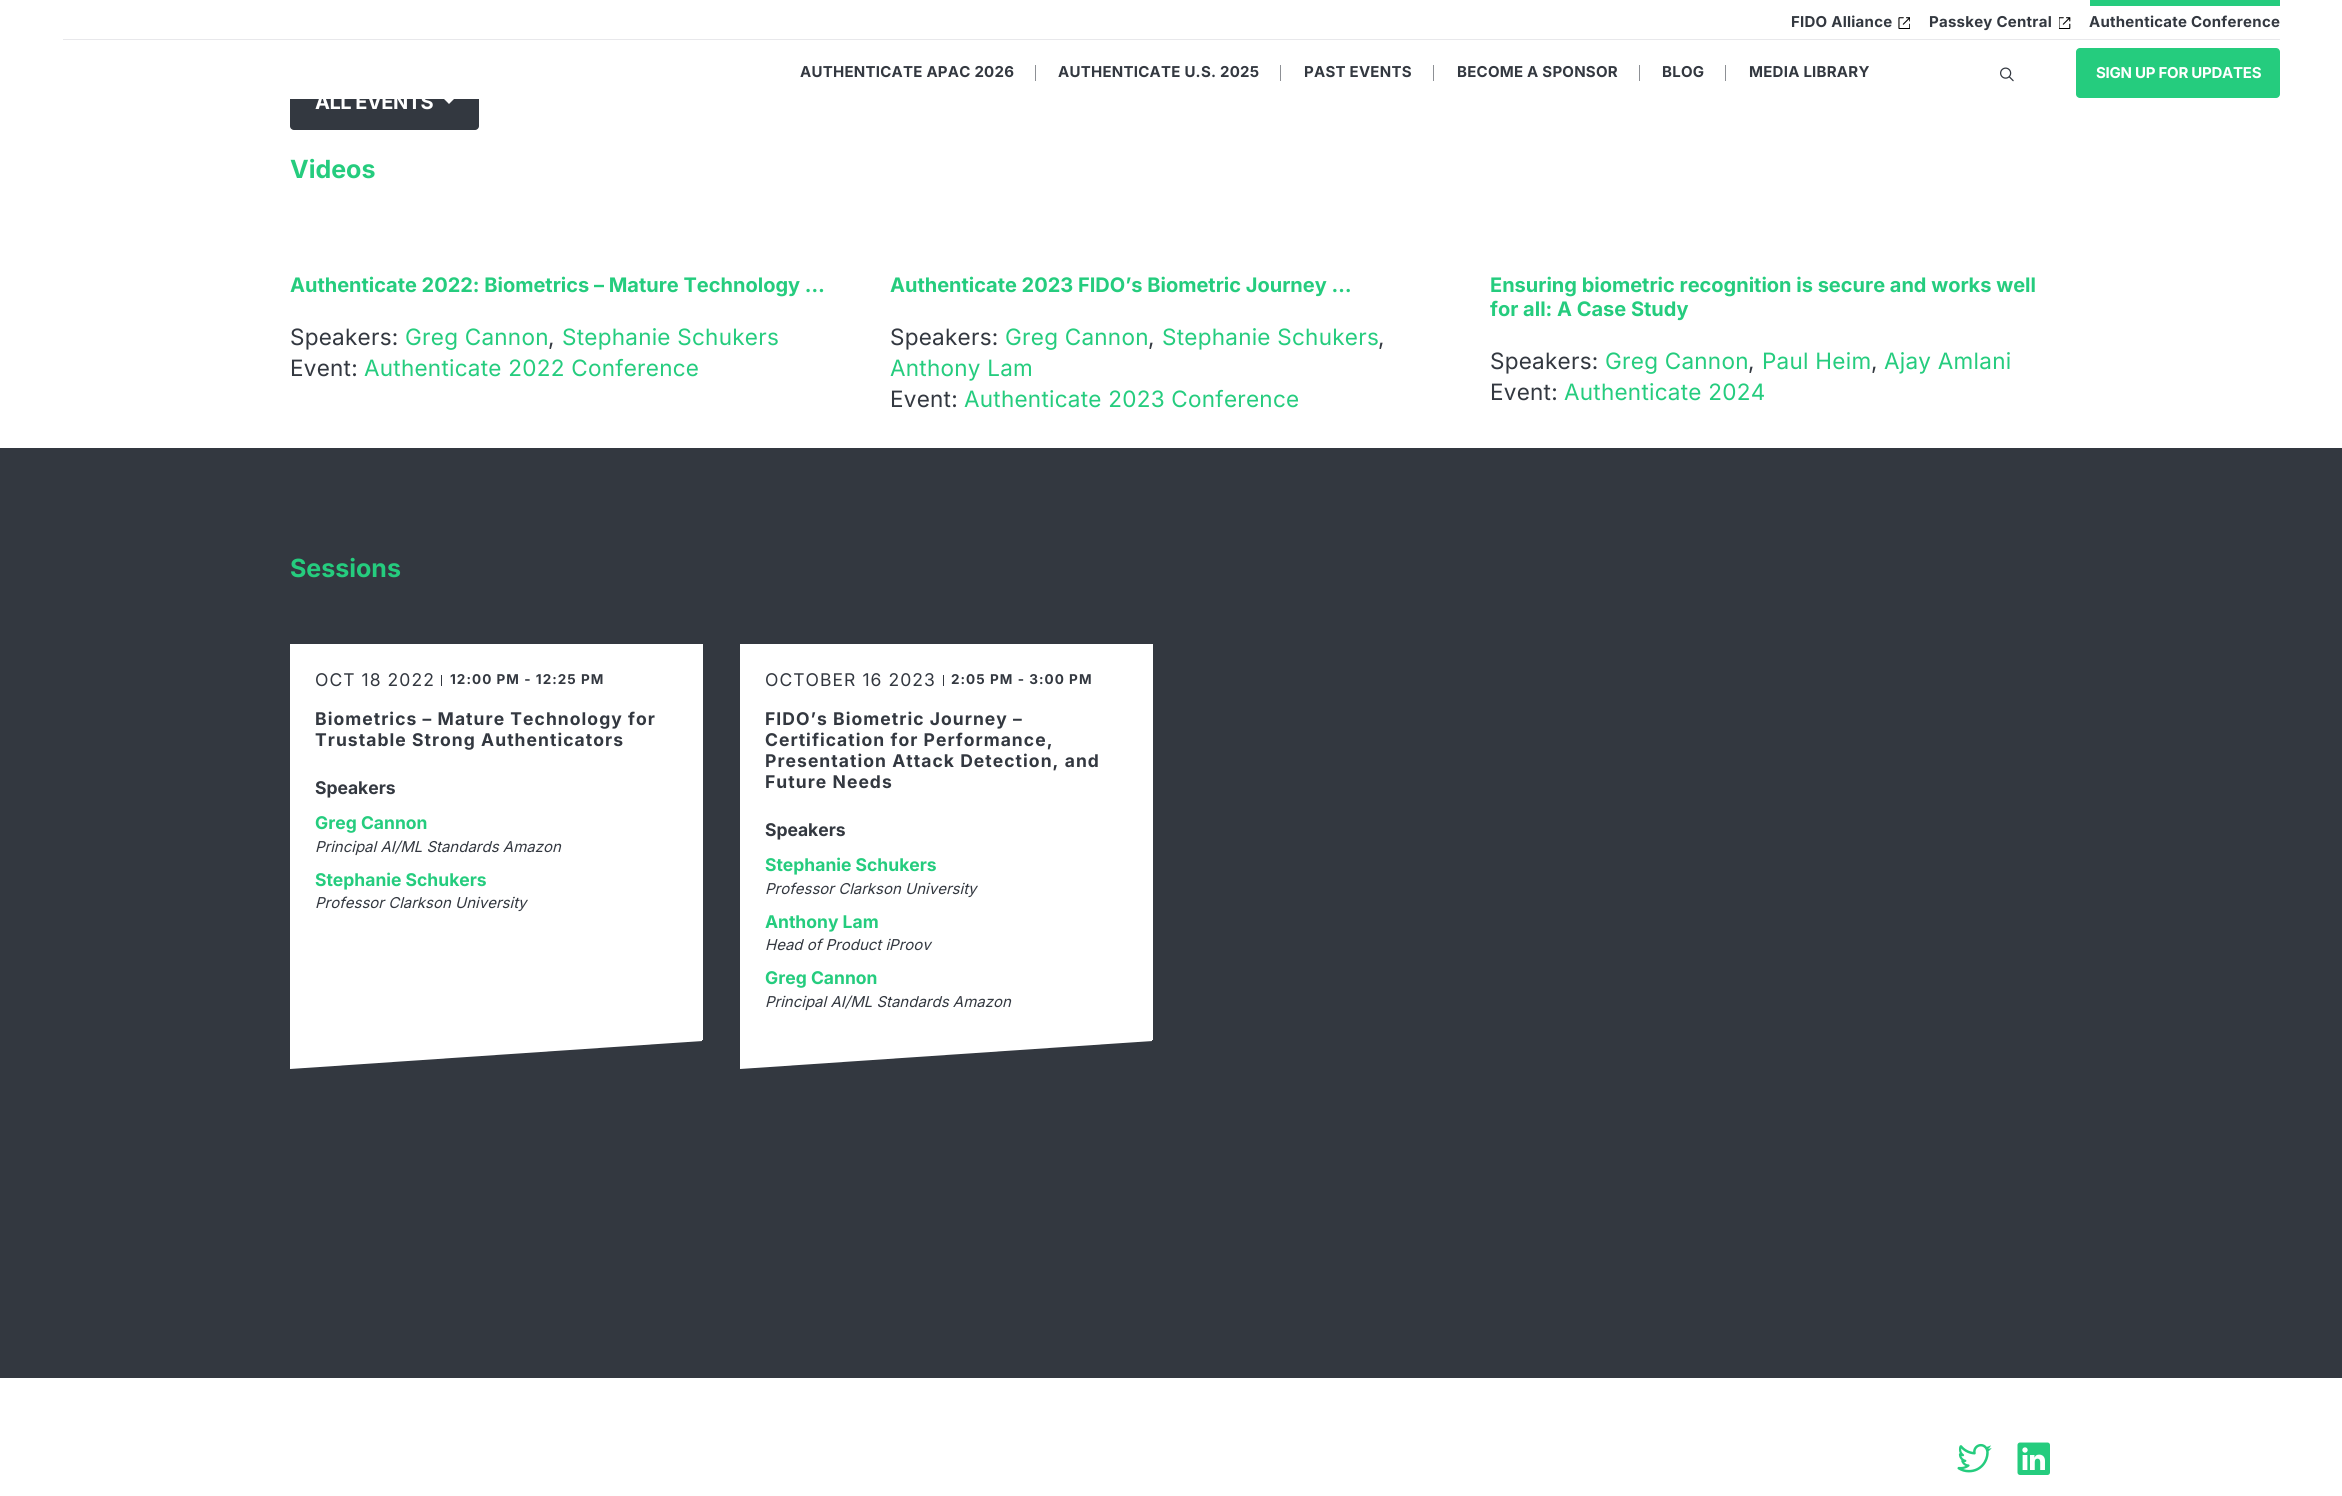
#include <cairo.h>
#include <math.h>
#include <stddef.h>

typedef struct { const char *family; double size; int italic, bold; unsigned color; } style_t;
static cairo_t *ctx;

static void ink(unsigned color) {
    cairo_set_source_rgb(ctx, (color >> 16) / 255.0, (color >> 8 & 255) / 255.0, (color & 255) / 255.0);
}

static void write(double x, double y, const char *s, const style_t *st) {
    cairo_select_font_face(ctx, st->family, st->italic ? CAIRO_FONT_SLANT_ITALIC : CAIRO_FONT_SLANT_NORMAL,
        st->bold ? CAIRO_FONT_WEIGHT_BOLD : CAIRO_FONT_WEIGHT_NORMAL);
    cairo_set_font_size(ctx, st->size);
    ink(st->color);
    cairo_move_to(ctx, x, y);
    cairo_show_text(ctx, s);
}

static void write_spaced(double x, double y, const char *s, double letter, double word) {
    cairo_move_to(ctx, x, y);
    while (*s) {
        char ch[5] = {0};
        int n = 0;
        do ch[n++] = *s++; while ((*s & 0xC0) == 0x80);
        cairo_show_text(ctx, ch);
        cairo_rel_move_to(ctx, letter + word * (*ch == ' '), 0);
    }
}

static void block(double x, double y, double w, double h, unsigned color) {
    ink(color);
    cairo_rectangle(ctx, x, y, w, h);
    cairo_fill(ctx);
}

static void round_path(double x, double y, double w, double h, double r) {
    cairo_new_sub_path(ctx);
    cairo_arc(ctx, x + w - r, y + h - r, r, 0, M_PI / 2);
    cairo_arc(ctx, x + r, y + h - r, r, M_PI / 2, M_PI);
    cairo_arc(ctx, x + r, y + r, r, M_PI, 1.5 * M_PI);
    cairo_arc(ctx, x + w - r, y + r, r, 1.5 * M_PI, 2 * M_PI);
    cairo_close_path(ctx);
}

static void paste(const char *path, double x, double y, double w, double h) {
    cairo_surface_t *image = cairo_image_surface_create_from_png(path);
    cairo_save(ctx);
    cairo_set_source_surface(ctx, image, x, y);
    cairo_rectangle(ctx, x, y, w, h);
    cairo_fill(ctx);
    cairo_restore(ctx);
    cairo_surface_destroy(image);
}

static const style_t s1 = {"Inter", 25, 0, 1, 0x25cc7e};
static const style_t s2 = {"Inter", 20, 0, 1, 0x25cc7e};
static const style_t s3 = {"Inter", 17.5, 0, 1, 0x333840};
static const style_t s4 = {"Inter", 17.5, 0, 1, 0x25cc7e};
static const style_t s5 = {"Inter", 15, 1, 0, 0x333840};

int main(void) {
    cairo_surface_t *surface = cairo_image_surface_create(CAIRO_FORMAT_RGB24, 2342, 1496);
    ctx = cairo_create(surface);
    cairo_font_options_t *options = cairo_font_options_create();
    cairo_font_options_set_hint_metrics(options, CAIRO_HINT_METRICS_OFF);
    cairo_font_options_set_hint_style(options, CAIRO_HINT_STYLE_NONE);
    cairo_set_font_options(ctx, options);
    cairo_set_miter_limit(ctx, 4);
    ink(0xffffff);
    cairo_paint(ctx);
    ink(0x333840);
    round_path(290, 74, 189, 56, 4);
    cairo_fill(ctx);
    block(290, 74, 189, 25, 0xffffff);
    block(63, 39, 2217, 1, 0xe8e8eb);
    cairo_select_font_face(ctx, "Inter", CAIRO_FONT_SLANT_NORMAL, CAIRO_FONT_WEIGHT_BOLD);
    cairo_set_font_size(ctx, 15);
    ink(0x333840);
    write_spaced(1791, 27, "FIDO Alliance", 0.25, 0);
    paste("pic1.png", 1898, 17, 12, 12);
    write_spaced(1929, 27, "Passkey Central", 0.25, 0);
    paste("pic2.png", 2059, 17, 12, 12);
    block(2090, 0, 190, 6, 0x25cc7e);
    ink(0x333840);
    write_spaced(2089, 27, "Authenticate Conference", 0.25, 0);
    write_spaced(800, 77, "AUTHENTICATE APAC 2026", 0.25, 0);
    block(1035, 65, 1, 16, 0x8d9095);
    ink(0x333840);
    write_spaced(1058, 77, "AUTHENTICATE U.S. 2025", 0.25, 0);
    block(1280, 65, 1, 16, 0x8d9095);
    ink(0x333840);
    write_spaced(1304, 77, "PAST EVENTS", 0.25, 0);
    block(1433, 65, 1, 16, 0x8d9095);
    ink(0x333840);
    write_spaced(1457, 77, "BECOME A SPONSOR", 0.25, 0);
    block(1639, 65, 1, 16, 0x8d9095);
    ink(0x333840);
    write_spaced(1662, 77, "BLOG", 0.25, 0);
    block(1725, 65, 1, 16, 0x8d9095);
    ink(0x333840);
    write_spaced(1749, 77, "MEDIA LIBRARY", 0.25, 0);
    paste("pic3.png", 2000, 67, 14, 15);
    ink(0x25cc7e);
    round_path(2076, 48, 204, 50, 4);
    cairo_fill(ctx);
    ink(0xffffff);
    write_spaced(2096, 78, "SIGN UP FOR UPDATES", -0.25, 0);
    cairo_set_font_size(ctx, 20);
    write_spaced(315, 109, "ALL EVENTS", -0.5, 0);
    cairo_new_path(ctx);
    cairo_move_to(ctx, 444, 99);
    cairo_line_to(ctx, 454, 99);
    cairo_line_to(ctx, 449, 104);
    cairo_close_path(ctx);
    cairo_fill(ctx);
    write(290, 178, "Videos", &s1);
    write(290, 292, "Authenticate 2022: Biometrics – Mature Technology …", &s2);
    cairo_select_font_face(ctx, "Inter", CAIRO_FONT_SLANT_NORMAL, CAIRO_FONT_WEIGHT_NORMAL);
    cairo_set_font_size(ctx, 22.5);
    ink(0x333840);
    write_spaced(290, 345, "Speakers:", 0.25, 0);
    ink(0x25cc7e);
    write_spaced(405, 345, "Greg Cannon", 0.25, 0);
    ink(0x333840);
    write_spaced(548, 345, ",", 0.25, 0);
    ink(0x25cc7e);
    write_spaced(562, 345, "Stephanie Schukers", 0.25, 0);
    ink(0x333840);
    write_spaced(290, 376, "Event:", 0.25, 0);
    ink(0x25cc7e);
    write_spaced(364, 376, "Authenticate 2022 Conference", 0.25, 0);
    write(890, 292, "Authenticate 2023 FIDO’s Biometric Journey …", &s2);
    cairo_select_font_face(ctx, "Inter", CAIRO_FONT_SLANT_NORMAL, CAIRO_FONT_WEIGHT_NORMAL);
    cairo_set_font_size(ctx, 22.5);
    ink(0x333840);
    write_spaced(890, 345, "Speakers:", 0.25, 0);
    ink(0x25cc7e);
    write_spaced(1005, 345, "Greg Cannon", 0.25, 0);
    ink(0x333840);
    write_spaced(1148, 345, ",", 0.25, 0);
    ink(0x25cc7e);
    write_spaced(1162, 345, "Stephanie Schukers", 0.25, 0);
    ink(0x333840);
    write_spaced(1378, 345, ",", 0.25, 0);
    ink(0x25cc7e);
    write_spaced(890, 376, "Anthony Lam", 0.25, 0);
    ink(0x333840);
    write_spaced(890, 407, "Event:", 0.25, 0);
    ink(0x25cc7e);
    write_spaced(964, 407, "Authenticate 2023 Conference", 0.25, 0);
    write(1490, 292, "Ensuring biometric recognition is secure and works well", &s2);
    write(1490, 316, "for all: A Case Study", &s2);
    cairo_select_font_face(ctx, "Inter", CAIRO_FONT_SLANT_NORMAL, CAIRO_FONT_WEIGHT_NORMAL);
    cairo_set_font_size(ctx, 22.5);
    ink(0x333840);
    write_spaced(1490, 369, "Speakers:", 0.25, 0);
    ink(0x25cc7e);
    write_spaced(1605, 369, "Greg Cannon", 0.25, 0);
    ink(0x333840);
    write_spaced(1748, 369, ",", 0.25, 0);
    ink(0x25cc7e);
    write_spaced(1762, 369, "Paul Heim", 0.25, 0);
    ink(0x333840);
    write_spaced(1871, 369, ",", 0.25, 0);
    ink(0x25cc7e);
    write_spaced(1884, 369, "Ajay Amlani", 0.25, 0);
    ink(0x333840);
    write_spaced(1490, 400, "Event:", 0.25, 0);
    ink(0x25cc7e);
    write_spaced(1564, 400, "Authenticate 2024", 0.25, 0);
    block(0, 448, 2342, 930, 0x333840);
    write(290, 577, "Sessions", &s1);
    block(290, 644, 413, 396, 0xffffff);
    cairo_select_font_face(ctx, "Inter", CAIRO_FONT_SLANT_NORMAL, CAIRO_FONT_WEIGHT_NORMAL);
    cairo_set_font_size(ctx, 17.5);
    ink(0x333840);
    write_spaced(315, 686, "OCT 18 2022", 1.05, 0);
    block(441, 675, 1, 11, 0x333840);
    cairo_select_font_face(ctx, "Inter", CAIRO_FONT_SLANT_NORMAL, CAIRO_FONT_WEIGHT_BOLD);
    cairo_set_font_size(ctx, 13.5);
    write_spaced(450, 684, "12:00 PM - 12:25 PM", 1.05, 0);
    cairo_set_font_size(ctx, 17.5);
    write_spaced(315, 725, "Biometrics – Mature Technology for", 1.05, 0);
    write_spaced(315, 746, "Trustable Strong Authenticators", 1.05, 0);
    write(315, 794, "Speakers", &s3);
    write(315, 829, "Greg Cannon", &s4);
    write(315, 852, "Principal AI/ML Standards Amazon", &s5);
    write(315, 886, "Stephanie Schukers", &s4);
    write(315, 908, "Professor Clarkson University", &s5);
    ink(0xffffff);
    cairo_new_path(ctx);
    cairo_move_to(ctx, 290, 1019);
    cairo_line_to(ctx, 702, 991);
    cairo_line_to(ctx, 702, 1041);
    cairo_line_to(ctx, 290, 1069);
    cairo_close_path(ctx);
    cairo_fill(ctx);
    block(740, 644, 413, 396, 0xffffff);
    cairo_select_font_face(ctx, "Inter", CAIRO_FONT_SLANT_NORMAL, CAIRO_FONT_WEIGHT_NORMAL);
    cairo_set_font_size(ctx, 17.5);
    ink(0x333840);
    write_spaced(765, 686, "OCTOBER 16 2023", 1.05, 0);
    block(943, 675, 1, 11, 0x333840);
    cairo_select_font_face(ctx, "Inter", CAIRO_FONT_SLANT_NORMAL, CAIRO_FONT_WEIGHT_BOLD);
    cairo_set_font_size(ctx, 13.5);
    write_spaced(951, 684, "2:05 PM - 3:00 PM", 1.05, 0);
    cairo_set_font_size(ctx, 17.5);
    write_spaced(765, 725, "FIDO’s Biometric Journey –", 1.05, 0);
    write_spaced(765, 746, "Certification for Performance,", 1.05, 0);
    write_spaced(765, 767, "Presentation Attack Detection, and", 1.05, 0);
    write_spaced(765, 788, "Future Needs", 1.05, 0);
    write(765, 836, "Speakers", &s3);
    write(765, 871, "Stephanie Schukers", &s4);
    write(765, 894, "Professor Clarkson University", &s5);
    write(765, 928, "Anthony Lam", &s4);
    write(765, 950, "Head of Product iProov", &s5);
    write(765, 984, "Greg Cannon", &s4);
    ink(0xffffff);
    cairo_new_path(ctx);
    cairo_move_to(ctx, 740, 1019);
    cairo_line_to(ctx, 1152, 991);
    cairo_line_to(ctx, 1152, 1041);
    cairo_line_to(ctx, 740, 1069);
    cairo_close_path(ctx);
    cairo_fill(ctx);
    write(765, 1007, "Principal AI/ML Standards Amazon", &s5);
    paste("pic4.png", 1957, 1443, 35, 30);
    paste("pic5.png", 2017, 1442, 33, 33);
    cairo_surface_write_to_png(surface, "screenshot.png");
    cairo_font_options_destroy(options);
    cairo_destroy(ctx);
    cairo_surface_destroy(surface);
    return 0;
}
